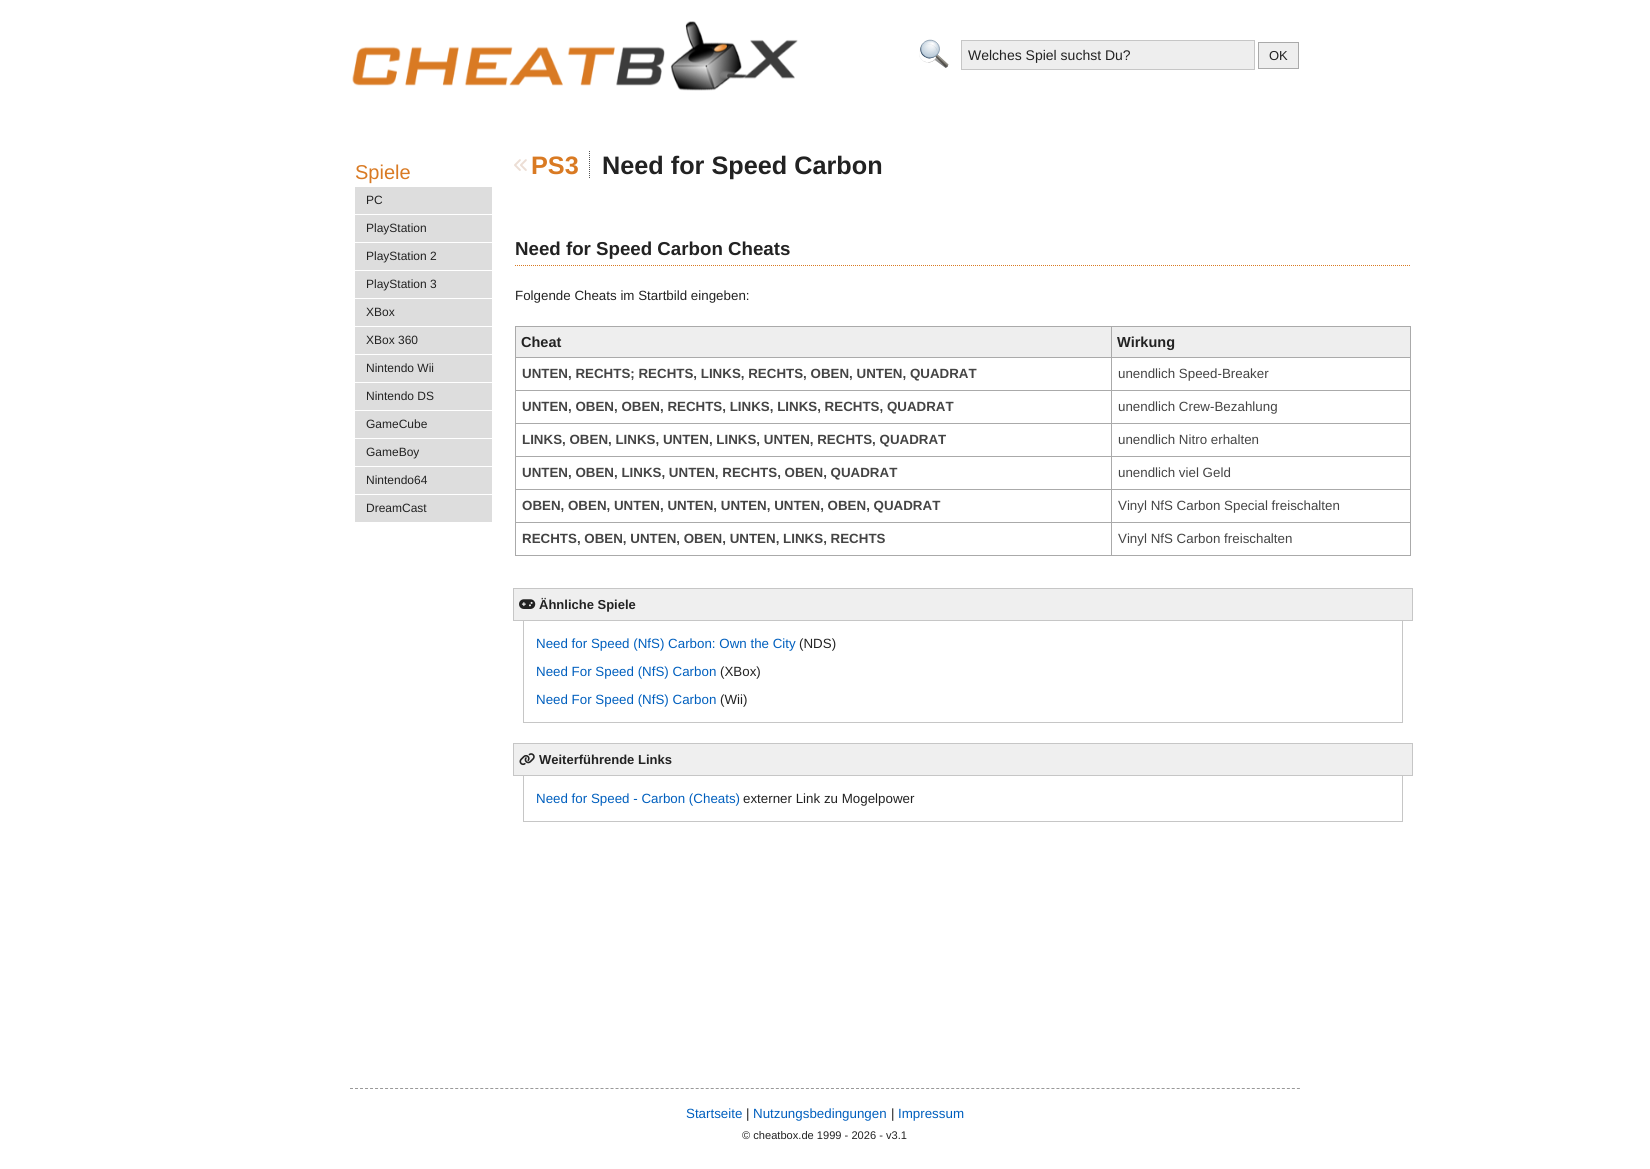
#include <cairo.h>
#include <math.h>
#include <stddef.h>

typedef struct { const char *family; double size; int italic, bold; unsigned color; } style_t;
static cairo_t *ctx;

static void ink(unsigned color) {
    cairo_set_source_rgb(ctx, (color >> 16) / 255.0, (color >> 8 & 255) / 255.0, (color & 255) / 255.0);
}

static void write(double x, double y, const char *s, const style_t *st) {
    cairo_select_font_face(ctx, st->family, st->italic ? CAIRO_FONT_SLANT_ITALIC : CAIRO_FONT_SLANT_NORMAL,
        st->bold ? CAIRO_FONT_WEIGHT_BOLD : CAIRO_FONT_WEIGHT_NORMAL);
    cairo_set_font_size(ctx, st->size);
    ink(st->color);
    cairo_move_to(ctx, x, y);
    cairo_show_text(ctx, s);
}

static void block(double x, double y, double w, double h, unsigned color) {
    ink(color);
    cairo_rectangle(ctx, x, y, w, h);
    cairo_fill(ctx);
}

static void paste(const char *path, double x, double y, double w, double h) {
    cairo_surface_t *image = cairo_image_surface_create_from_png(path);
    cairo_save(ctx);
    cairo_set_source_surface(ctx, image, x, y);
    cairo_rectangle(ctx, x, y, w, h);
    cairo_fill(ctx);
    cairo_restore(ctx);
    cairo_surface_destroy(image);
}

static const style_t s1 = {"Liberation Sans", 14, 0, 0, 0x222222};
static const style_t s2 = {"Liberation Sans", 13, 0, 0, 0x222222};
static const style_t s3 = {"Liberation Sans", 20, 0, 0, 0xd97a23};
static const style_t s4 = {"Liberation Sans", 12, 0, 0, 0x222222};
static const style_t s5 = {"Liberation Sans", 25.25, 0, 1, 0xd97a23};
static const style_t s6 = {"Liberation Sans", 25.25, 0, 1, 0x222222};
static const style_t s7 = {"Liberation Sans", 18.7, 0, 1, 0x222222};
static const style_t s8 = {"Liberation Sans", 13.35, 0, 0, 0x222222};
static const style_t s9 = {"Liberation Sans", 14.5, 0, 1, 0x222222};
static const style_t s10 = {"Liberation Sans", 13.35, 0, 1, 0x444444};
static const style_t s11 = {"Liberation Sans", 13.35, 0, 0, 0x444444};
static const style_t s12 = {"Liberation Sans", 13, 0, 1, 0x222222};
static const style_t s13 = {"Liberation Sans", 13.35, 0, 0, 0x005fbe};
static const style_t s14 = {"Liberation Sans", 11.1, 0, 0, 0x222222};

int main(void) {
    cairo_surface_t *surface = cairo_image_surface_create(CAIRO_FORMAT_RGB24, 1650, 1169);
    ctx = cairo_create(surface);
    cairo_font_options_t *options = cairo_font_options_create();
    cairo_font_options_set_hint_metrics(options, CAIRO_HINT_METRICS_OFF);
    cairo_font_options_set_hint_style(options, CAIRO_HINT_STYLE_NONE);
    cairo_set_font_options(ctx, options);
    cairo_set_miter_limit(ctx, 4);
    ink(0xffffff);
    cairo_paint(ctx);
    paste("pic1.png", 352, 21, 446, 70);
    paste("pic2.png", 919, 39, 30, 29);
    ink(0xeeeeee);
    cairo_rectangle(ctx, 961.5, 40.5, 293, 29);
    cairo_fill_preserve(ctx);
    ink(0xc6c6c6);
    cairo_set_line_width(ctx, 1);
    cairo_stroke(ctx);
    write(968, 60, "Welches Spiel suchst Du?", &s1);
    ink(0xeeeeee);
    cairo_rectangle(ctx, 1258.5, 42.5, 40, 26);
    cairo_fill_preserve(ctx);
    ink(0xaaaaaa);
    cairo_stroke(ctx);
    write(1269, 60, "OK", &s2);
    write(355, 179, "Spiele", &s3);
    block(355, 187, 137, 27, 0xdddddd);
    write(366, 204, "PC", &s4);
    block(355, 215, 137, 27, 0xdddddd);
    write(366, 232, "PlayStation", &s4);
    block(355, 243, 137, 27, 0xdddddd);
    write(366, 260, "PlayStation 2", &s4);
    block(355, 271, 137, 27, 0xdddddd);
    write(366, 288, "PlayStation 3", &s4);
    block(355, 299, 137, 27, 0xdddddd);
    write(366, 316, "XBox", &s4);
    block(355, 327, 137, 27, 0xdddddd);
    write(366, 344, "XBox 360", &s4);
    block(355, 355, 137, 27, 0xdddddd);
    write(366, 372, "Nintendo Wii", &s4);
    block(355, 383, 137, 27, 0xdddddd);
    write(366, 400, "Nintendo DS", &s4);
    block(355, 411, 137, 27, 0xdddddd);
    write(366, 428, "GameCube", &s4);
    block(355, 439, 137, 27, 0xdddddd);
    write(366, 456, "GameBoy", &s4);
    block(355, 467, 137, 27, 0xdddddd);
    write(366, 484, "Nintendo64", &s4);
    block(355, 495, 137, 27, 0xdddddd);
    write(366, 512, "DreamCast", &s4);
    paste("pic3.png", 514, 159, 13, 12);
    write(531, 174, "PS3", &s5);
    cairo_new_path(ctx);
    cairo_move_to(ctx, 589.5, 151);
    cairo_line_to(ctx, 589.5, 179);
    ink(0x555555);
    cairo_set_dash(ctx, (double[]){1, 1}, 2, 0);
    cairo_stroke(ctx);
    write(602, 174, "Need for Speed Carbon", &s6);
    cairo_new_path(ctx);
    cairo_move_to(ctx, 515, 265.5);
    cairo_line_to(ctx, 1411, 265.5);
    ink(0xd97a23);
    cairo_stroke(ctx);
    write(515, 255, "Need for Speed Carbon Cheats", &s7);
    write(515, 300, "Folgende Cheats im Startbild eingeben:", &s8);
    block(516, 327, 595, 30, 0xeeeeee);
    block(1111, 326, 300, 1, 0xaaaaaa);
    block(1111, 357, 300, 1, 0xaaaaaa);
    block(1111, 390, 300, 1, 0xaaaaaa);
    block(1111, 423, 300, 1, 0xaaaaaa);
    block(1111, 456, 300, 1, 0xaaaaaa);
    block(1111, 489, 300, 1, 0xaaaaaa);
    block(1111, 522, 300, 1, 0xaaaaaa);
    block(1410, 522, 1, 34, 0xaaaaaa);
    block(1111, 555, 300, 1, 0xaaaaaa);
    block(1111, 522, 1, 34, 0xaaaaaa);
    block(515, 522, 597, 1, 0xaaaaaa);
    block(1111, 489, 1, 34, 0xaaaaaa);
    block(515, 489, 597, 1, 0xaaaaaa);
    block(1111, 456, 1, 34, 0xaaaaaa);
    block(515, 456, 597, 1, 0xaaaaaa);
    block(1111, 423, 1, 34, 0xaaaaaa);
    block(515, 423, 597, 1, 0xaaaaaa);
    block(1111, 390, 1, 34, 0xaaaaaa);
    block(515, 390, 597, 1, 0xaaaaaa);
    block(1111, 357, 1, 34, 0xaaaaaa);
    block(515, 357, 597, 1, 0xaaaaaa);
    block(1111, 326, 1, 32, 0xaaaaaa);
    block(515, 326, 597, 1, 0xaaaaaa);
    block(515, 555, 597, 1, 0xaaaaaa);
    block(515, 522, 1, 34, 0xaaaaaa);
    block(515, 489, 1, 34, 0xaaaaaa);
    block(515, 456, 1, 34, 0xaaaaaa);
    block(515, 423, 1, 34, 0xaaaaaa);
    block(515, 390, 1, 34, 0xaaaaaa);
    block(515, 357, 1, 34, 0xaaaaaa);
    block(515, 326, 1, 32, 0xaaaaaa);
    write(521, 347, "Cheat", &s9);
    block(1112, 327, 298, 30, 0xeeeeee);
    block(1410, 489, 1, 34, 0xaaaaaa);
    block(1410, 456, 1, 34, 0xaaaaaa);
    block(1410, 423, 1, 34, 0xaaaaaa);
    block(1410, 390, 1, 34, 0xaaaaaa);
    block(1410, 357, 1, 34, 0xaaaaaa);
    block(1410, 326, 1, 32, 0xaaaaaa);
    write(1117, 347, "Wirkung", &s9);
    write(522, 378, "UNTEN, RECHTS; RECHTS, LINKS, RECHTS, OBEN, UNTEN, QUADRAT", &s10);
    write(1118, 378, "unendlich Speed-Breaker", &s11);
    write(522, 411, "UNTEN, OBEN, OBEN, RECHTS, LINKS, LINKS, RECHTS, QUADRAT", &s10);
    write(1118, 411, "unendlich Crew-Bezahlung", &s11);
    write(522, 444, "LINKS, OBEN, LINKS, UNTEN, LINKS, UNTEN, RECHTS, QUADRAT", &s10);
    write(1118, 444, "unendlich Nitro erhalten", &s11);
    write(522, 477, "UNTEN, OBEN, LINKS, UNTEN, RECHTS, OBEN, QUADRAT", &s10);
    write(1118, 477, "unendlich viel Geld", &s11);
    write(522, 510, "OBEN, OBEN, UNTEN, UNTEN, UNTEN, UNTEN, OBEN, QUADRAT", &s10);
    write(1118, 510, "Vinyl NfS Carbon Special freischalten", &s11);
    write(522, 543, "RECHTS, OBEN, UNTEN, OBEN, UNTEN, LINKS, RECHTS", &s10);
    write(1118, 543, "Vinyl NfS Carbon freischalten", &s11);
    ink(0xefefef);
    cairo_rectangle(ctx, 513.5, 588.5, 899, 32);
    cairo_fill_preserve(ctx);
    ink(0xc6c6c6);
    cairo_set_dash(ctx, NULL, 0, 0);
    cairo_stroke(ctx);
    paste("pic4.png", 519, 599, 17, 10);
    write(539, 609, "Ähnliche Spiele", &s12);
    block(1402, 621, 1, 102, 0xc6c6c6);
    block(523, 722, 880, 1, 0xc6c6c6);
    block(523, 621, 1, 102, 0xc6c6c6);
    write(536, 648, "Need for Speed (NfS) Carbon: Own the City", &s13);
    write(799, 648, "(NDS)", &s8);
    write(536, 676, "Need For Speed (NfS) Carbon", &s13);
    write(720, 676, "(XBox)", &s8);
    write(536, 704, "Need For Speed (NfS) Carbon", &s13);
    write(720, 704, "(Wii)", &s8);
    ink(0xefefef);
    cairo_rectangle(ctx, 513.5, 743.5, 899, 32);
    cairo_fill_preserve(ctx);
    ink(0xc6c6c6);
    cairo_stroke(ctx);
    paste("pic5.png", 519, 753, 16, 13);
    write(539, 764, "Weiterführende Links", &s12);
    block(1402, 776, 1, 46, 0xc6c6c6);
    block(523, 821, 880, 1, 0xc6c6c6);
    block(523, 776, 1, 46, 0xc6c6c6);
    write(536, 803, "Need for Speed - Carbon (Cheats)", &s13);
    write(743, 803, "externer Link zu Mogelpower", &s8);
    cairo_new_path(ctx);
    cairo_move_to(ctx, 350, 1088.5);
    cairo_line_to(ctx, 1300, 1088.5);
    ink(0x999999);
    cairo_set_dash(ctx, (double[]){3, 2.01}, 2, 0);
    cairo_stroke(ctx);
    write(686, 1118, "Startseite", &s13);
    write(746, 1118, "|", &s8);
    write(753, 1118, "Nutzungsbedingungen", &s13);
    write(891, 1118, "|", &s8);
    write(898, 1118, "Impressum", &s13);
    write(742, 1139, "© cheatbox.de 1999 - 2026 - v3.1", &s14);
    cairo_surface_write_to_png(surface, "screenshot.png");
    cairo_font_options_destroy(options);
    cairo_destroy(ctx);
    cairo_surface_destroy(surface);
    return 0;
}
